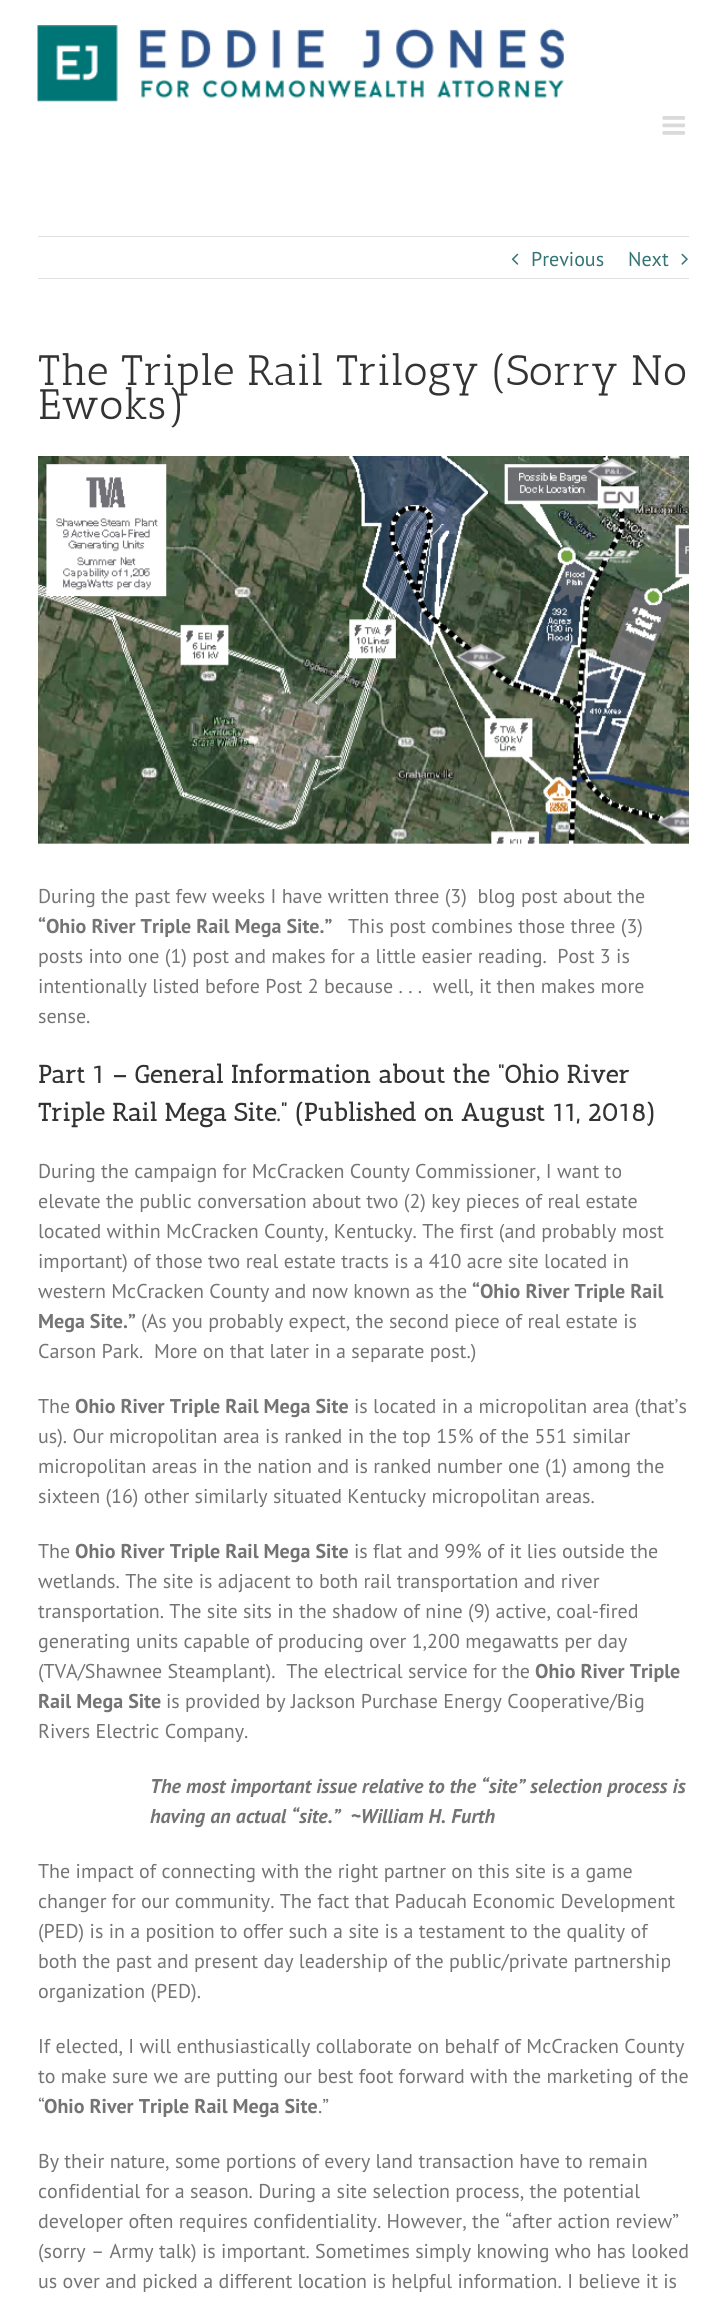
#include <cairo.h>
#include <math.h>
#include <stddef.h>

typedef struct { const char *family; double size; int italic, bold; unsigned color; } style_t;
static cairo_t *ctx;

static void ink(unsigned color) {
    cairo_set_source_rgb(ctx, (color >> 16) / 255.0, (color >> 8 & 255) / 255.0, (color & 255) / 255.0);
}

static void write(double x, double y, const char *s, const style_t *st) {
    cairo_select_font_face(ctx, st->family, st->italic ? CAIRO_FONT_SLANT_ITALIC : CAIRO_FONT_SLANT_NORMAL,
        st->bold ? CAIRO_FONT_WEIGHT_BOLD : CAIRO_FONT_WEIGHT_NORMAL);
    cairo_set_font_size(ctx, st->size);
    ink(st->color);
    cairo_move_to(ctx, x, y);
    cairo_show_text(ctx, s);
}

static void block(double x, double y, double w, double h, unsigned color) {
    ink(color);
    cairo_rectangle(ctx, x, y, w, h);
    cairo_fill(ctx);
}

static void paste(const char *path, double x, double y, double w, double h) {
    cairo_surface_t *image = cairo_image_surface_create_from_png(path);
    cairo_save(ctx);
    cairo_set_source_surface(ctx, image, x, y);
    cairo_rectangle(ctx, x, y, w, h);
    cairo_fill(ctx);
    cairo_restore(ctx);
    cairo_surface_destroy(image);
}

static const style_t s1 = {"PT Sans", 20, 0, 0, 0x347374};
static const style_t s2 = {"Antic Slab", 42.5, 0, 0, 0x333333};
static const style_t s3 = {"PT Sans", 20, 0, 0, 0x747474};
static const style_t s4 = {"PT Sans", 20, 0, 1, 0x747474};
static const style_t s5 = {"Antic Slab", 25, 0, 1, 0x333333};
static const style_t s6 = {"PT Sans", 20, 1, 1, 0x747474};

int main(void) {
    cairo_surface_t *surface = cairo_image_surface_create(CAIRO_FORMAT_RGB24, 726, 2298);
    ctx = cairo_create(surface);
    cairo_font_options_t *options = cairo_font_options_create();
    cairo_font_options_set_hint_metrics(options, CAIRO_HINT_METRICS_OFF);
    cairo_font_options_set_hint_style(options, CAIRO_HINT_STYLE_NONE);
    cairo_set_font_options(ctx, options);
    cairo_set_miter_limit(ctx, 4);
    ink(0xffffff);
    cairo_paint(ctx);
    paste("pic1.png", 37, 25, 527, 77);
    paste("pic2.png", 662, 116, 23, 19);
    block(38, 236, 651, 1, 0xe0dede);
    block(38, 278, 651, 1, 0xe0dede);
    paste("pic3.png", 511, 253, 8, 12);
    write(531, 266, "Previous", &s1);
    write(628, 266, "Next", &s1);
    paste("pic4.png", 681, 253, 7, 12);
    write(38, 385, "The Triple Rail Trilogy (Sorry No", &s2);
    write(38, 419, "Ewoks)", &s2);
    paste("pic5.png", 38, 456, 651, 388);
    write(38, 903, "During the past few weeks I have written three (3)  blog post about the", &s3);
    write(38, 933, "“Ohio River Triple Rail Mega Site.”", &s4);
    write(348, 933, "This post combines those three (3)", &s3);
    write(38, 963, "posts into one (1) post and makes for a little easier reading.  Post 3 is", &s3);
    write(38, 993, "intentionally listed before Post 2 because . . .  well, it then makes more", &s3);
    write(38, 1023, "sense.", &s3);
    write(38, 1083, "Part 1 – General Information about the “Ohio River", &s5);
    write(38, 1121, "Triple Rail Mega Site.” (Published on August 11, 2018)", &s5);
    write(38, 1178, "During the campaign for McCracken County Commissioner, I want to", &s3);
    write(38, 1208, "elevate the public conversation about two (2) key pieces of real estate", &s3);
    write(38, 1238, "located within McCracken County, Kentucky. The first (and probably most", &s3);
    write(38, 1268, "important) of those two real estate tracts is a 410 acre site located in", &s3);
    write(38, 1298, "western McCracken County and now known as the", &s3);
    write(472, 1298, "“Ohio River Triple Rail", &s4);
    write(38, 1328, "Mega Site.”", &s4);
    write(141, 1328, "(As you probably expect, the second piece of real estate is", &s3);
    write(38, 1358, "Carson Park.  More on that later in a separate post.)", &s3);
    write(38, 1413, "The", &s3);
    write(75, 1413, "Ohio River Triple Rail Mega Site", &s4);
    write(354, 1413, "is located in a micropolitan area (that’s", &s3);
    write(38, 1443, "us). Our micropolitan area is ranked in the top 15% of the 551 similar", &s3);
    write(38, 1473, "micropolitan areas in the nation and is ranked number one (1) among the", &s3);
    write(38, 1503, "sixteen (16) other similarly situated Kentucky micropolitan areas.", &s3);
    write(38, 1558, "The", &s3);
    write(75, 1558, "Ohio River Triple Rail Mega Site", &s4);
    write(354, 1558, "is flat and 99% of it lies outside the", &s3);
    write(38, 1588, "wetlands. The site is adjacent to both rail transportation and river", &s3);
    write(38, 1618, "transportation. The site sits in the shadow of nine (9) active, coal-fired", &s3);
    write(38, 1648, "generating units capable of producing over 1,200 megawatts per day", &s3);
    write(38, 1678, "(TVA/Shawnee Steamplant).  The electrical service for the", &s3);
    write(535, 1678, "Ohio River Triple", &s4);
    write(38, 1708, "Rail Mega Site", &s4);
    write(166, 1708, "is provided by Jackson Purchase Energy Cooperative/Big", &s3);
    write(38, 1738, "Rivers Electric Company.", &s3);
    write(150, 1793, "The most important issue relative to the “site” selection process is", &s6);
    write(150, 1823, "having an actual “site.”  ~William H. Furth", &s6);
    write(38, 1878, "The impact of connecting with the right partner on this site is a game", &s3);
    write(38, 1908, "changer for our community. The fact that Paducah Economic Development", &s3);
    write(38, 1938, "(PED) is in a position to offer such a site is a testament to the quality of", &s3);
    write(38, 1968, "both the past and present day leadership of the public/private partnership", &s3);
    write(38, 1998, "organization (PED).", &s3);
    write(38, 2053, "If elected, I will enthusiastically collaborate on behalf of McCracken County", &s3);
    write(38, 2083, "to make sure we are putting our best foot forward with the marketing of the", &s3);
    write(38, 2113, "“", &s3);
    write(44, 2113, "Ohio River Triple Rail Mega Site", &s4);
    write(318, 2113, ".”", &s3);
    write(38, 2168, "By their nature, some portions of every land transaction have to remain", &s3);
    write(38, 2198, "confidential for a season. During a site selection process, the potential", &s3);
    write(38, 2228, "developer often requires confidentiality. However, the “after action review”", &s3);
    write(38, 2258, "(sorry – Army talk) is important. Sometimes simply knowing who has looked", &s3);
    write(38, 2288, "us over and picked a different location is helpful information. I believe it is", &s3);
    cairo_surface_write_to_png(surface, "screenshot.png");
    cairo_font_options_destroy(options);
    cairo_destroy(ctx);
    cairo_surface_destroy(surface);
    return 0;
}
